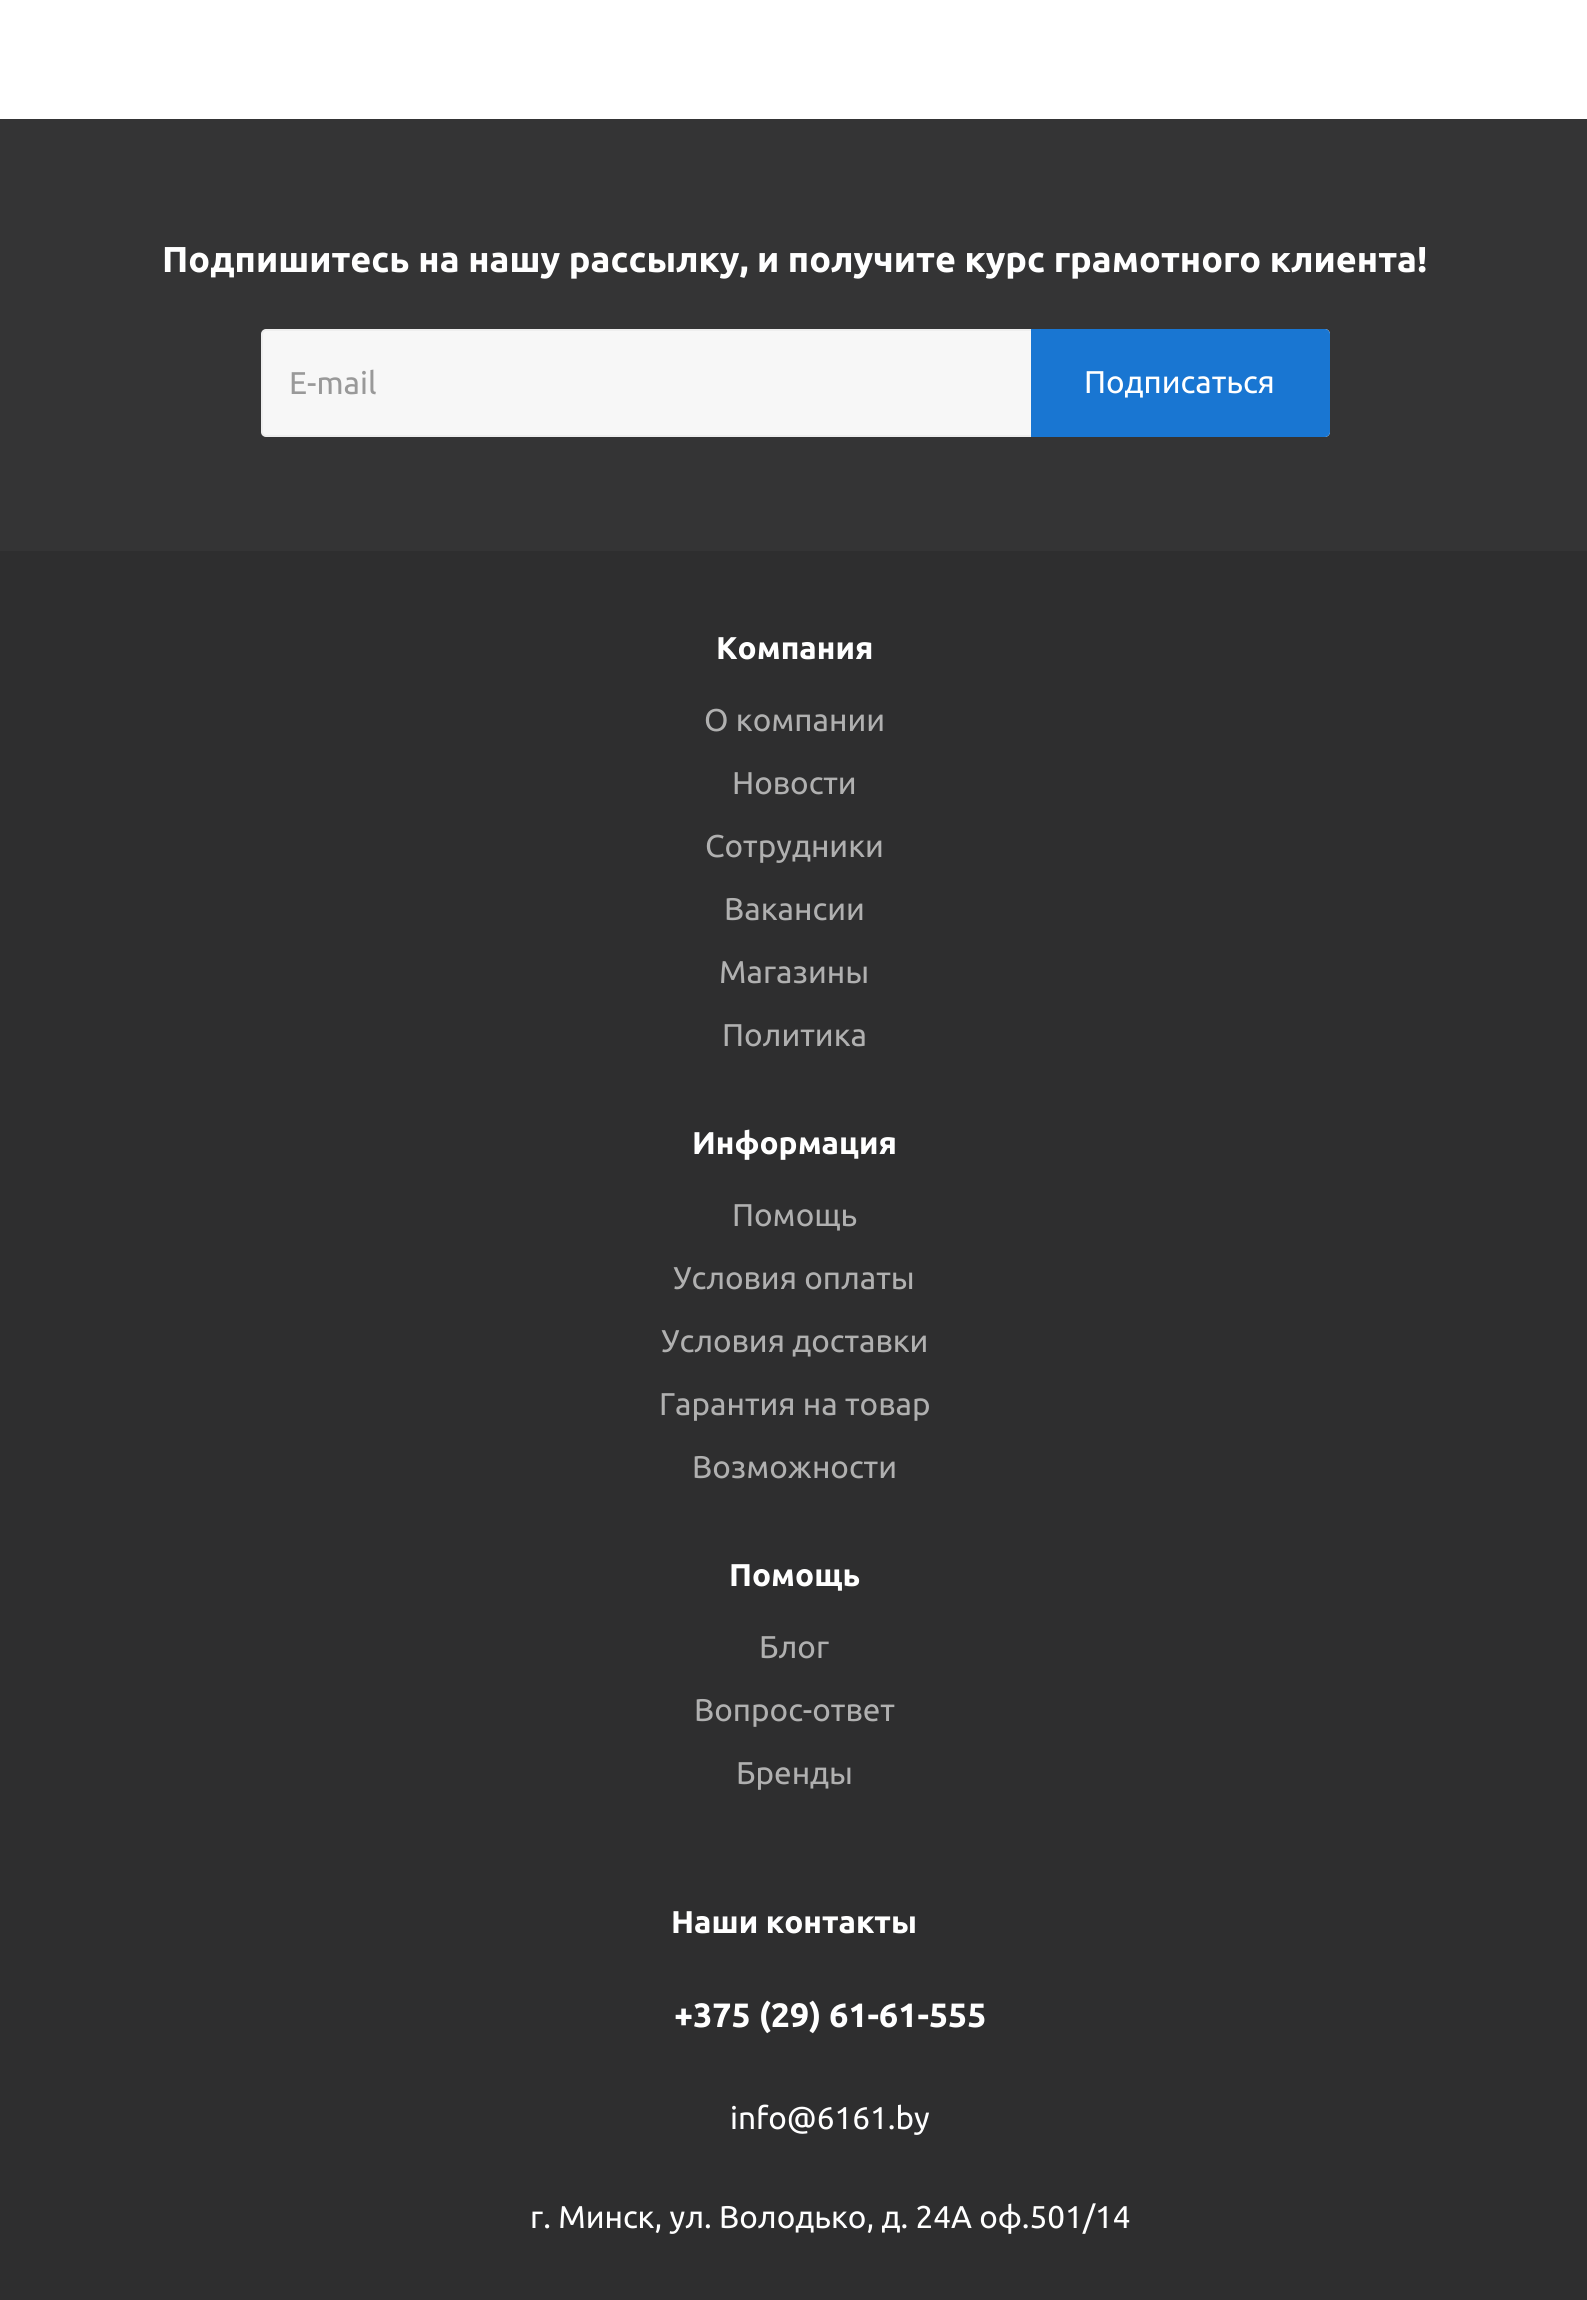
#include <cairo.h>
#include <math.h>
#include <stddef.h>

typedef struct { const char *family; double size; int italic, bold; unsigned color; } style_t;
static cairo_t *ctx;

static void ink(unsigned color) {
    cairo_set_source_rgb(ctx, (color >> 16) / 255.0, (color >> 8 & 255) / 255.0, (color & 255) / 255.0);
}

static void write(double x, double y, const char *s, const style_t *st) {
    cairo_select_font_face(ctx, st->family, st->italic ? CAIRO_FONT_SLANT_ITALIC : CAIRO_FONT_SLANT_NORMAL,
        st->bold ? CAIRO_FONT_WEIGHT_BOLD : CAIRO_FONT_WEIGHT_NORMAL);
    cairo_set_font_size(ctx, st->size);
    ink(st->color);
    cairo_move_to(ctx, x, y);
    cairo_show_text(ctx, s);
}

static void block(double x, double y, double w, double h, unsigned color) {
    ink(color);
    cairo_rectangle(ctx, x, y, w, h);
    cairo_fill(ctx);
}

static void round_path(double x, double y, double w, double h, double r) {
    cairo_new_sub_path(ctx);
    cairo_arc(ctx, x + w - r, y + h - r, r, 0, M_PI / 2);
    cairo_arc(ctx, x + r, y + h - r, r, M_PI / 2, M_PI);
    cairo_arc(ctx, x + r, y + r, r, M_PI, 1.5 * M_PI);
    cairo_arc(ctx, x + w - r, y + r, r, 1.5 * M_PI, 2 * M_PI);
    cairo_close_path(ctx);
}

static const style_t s1 = {"Ubuntu", 36, 0, 1, 0xffffff};
static const style_t s2 = {"Ubuntu", 31.5, 0, 0, 0x999999};
static const style_t s3 = {"Ubuntu", 31.5, 0, 0, 0xffffff};
static const style_t s4 = {"Ubuntu", 31.5, 0, 1, 0xffffff};
static const style_t s5 = {"Ubuntu", 31.5, 0, 0, 0xb0b0b0};
static const style_t s6 = {"Ubuntu", 33.75, 0, 1, 0xffffff};

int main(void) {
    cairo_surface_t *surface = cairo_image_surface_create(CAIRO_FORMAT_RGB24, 1587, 2300);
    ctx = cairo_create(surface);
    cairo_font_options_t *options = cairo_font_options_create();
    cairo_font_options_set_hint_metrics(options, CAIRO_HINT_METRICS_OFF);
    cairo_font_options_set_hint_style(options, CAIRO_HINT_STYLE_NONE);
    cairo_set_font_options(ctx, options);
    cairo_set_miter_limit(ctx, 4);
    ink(0xffffff);
    cairo_paint(ctx);
    block(0, 119, 1587, 432, 0x343435);
    write(162, 272, "Подпишитесь на нашу рассылку, и получите курс грамотного клиента!", &s1);
    ink(0xf7f7f7);
    round_path(262, 330, 1067, 106, 4);
    cairo_fill_preserve(ctx);
    ink(0xeeeeee);
    cairo_stroke(ctx);
    write(289, 394, "E-mail", &s2);
    ink(0x1976d2);
    cairo_new_path(ctx);
    cairo_move_to(ctx, 1032, 330);
    cairo_line_to(ctx, 1325, 330);
    cairo_curve_to(ctx, 1327, 330, 1329, 332, 1329, 334);
    cairo_line_to(ctx, 1329, 432);
    cairo_curve_to(ctx, 1329, 434, 1327, 436, 1325, 436);
    cairo_line_to(ctx, 1032, 436);
    cairo_close_path(ctx);
    cairo_fill_preserve(ctx);
    cairo_stroke(ctx);
    write(1084, 393, "Подписаться", &s3);
    block(0, 551, 1587, 1749, 0x2e2e2f);
    write(716, 659, "Компания", &s4);
    write(704, 731, "О компании", &s5);
    write(732, 794, "Новости", &s5);
    write(705, 857, "Сотрудники", &s5);
    write(724, 920, "Вакансии", &s5);
    write(719, 983, "Магазины", &s5);
    write(722, 1046, "Политика", &s5);
    write(692, 1154, "Информация", &s4);
    write(732, 1226, "Помощь", &s5);
    write(673, 1289, "Условия оплаты", &s5);
    write(661, 1352, "Условия доставки", &s5);
    write(659, 1415, "Гарантия на товар", &s5);
    write(692, 1478, "Возможности", &s5);
    write(729, 1586, "Помощь", &s4);
    write(759, 1658, "Блог", &s5);
    write(694, 1721, "Вопрос-ответ", &s5);
    write(736, 1784, "Бренды", &s5);
    write(671, 1933, "Наши контакты", &s4);
    write(674, 2027, "+375 (29) 61-61-555", &s6);
    write(730, 2129, "info@6161.by", &s3);
    write(530, 2228, "г. Минск, ул. Володько, д. 24А оф.501/14", &s3);
    cairo_surface_write_to_png(surface, "screenshot.png");
    cairo_font_options_destroy(options);
    cairo_destroy(ctx);
    cairo_surface_destroy(surface);
    return 0;
}
